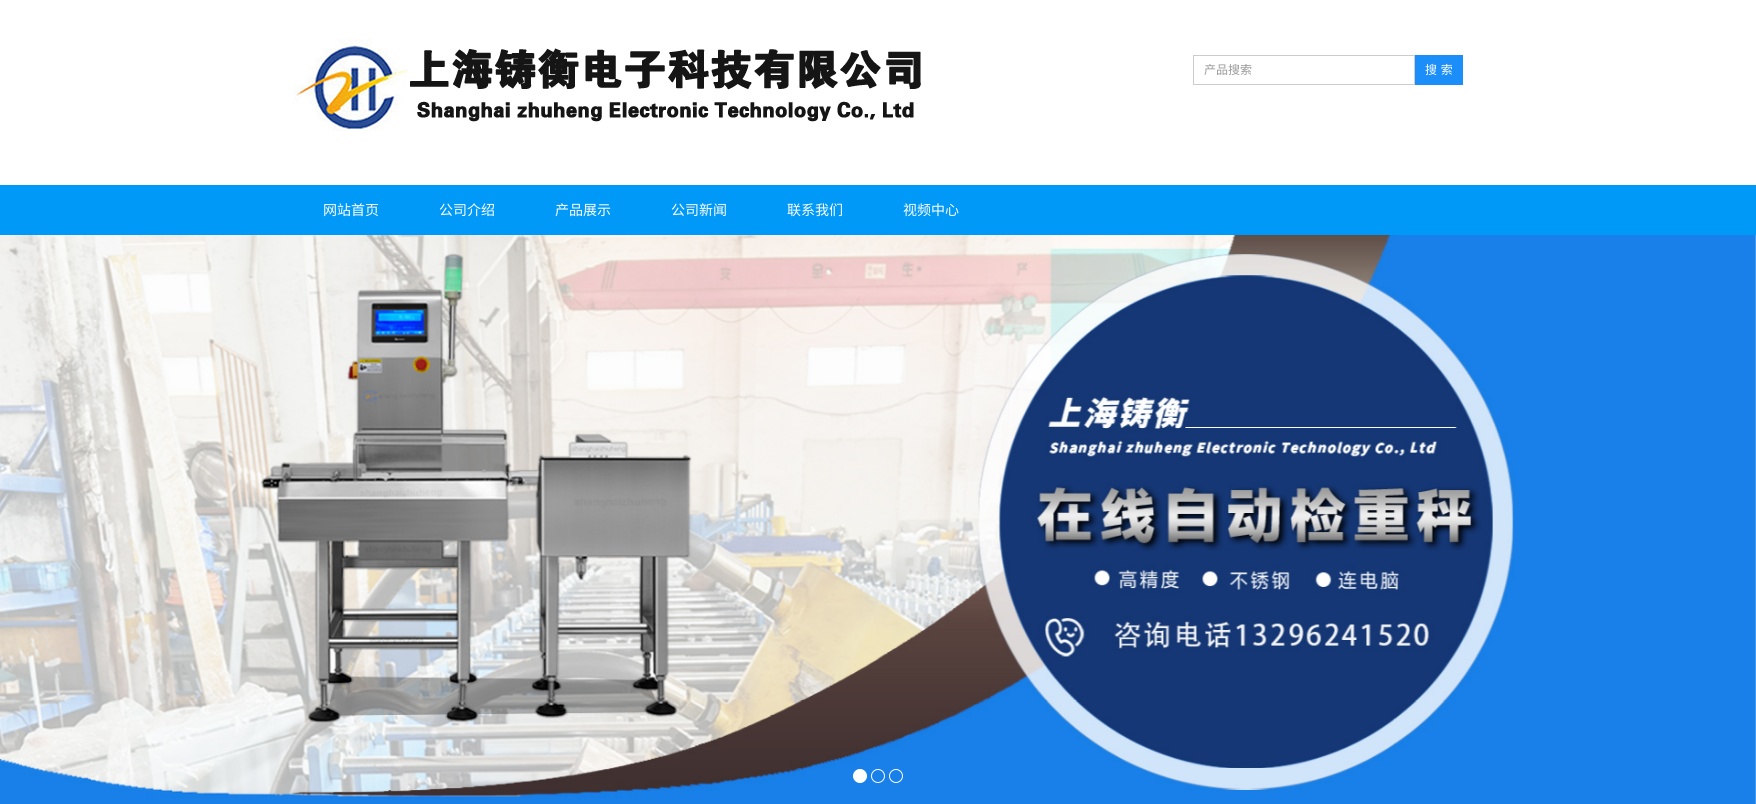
#include <cairo.h>
#include <math.h>
#include <stddef.h>

typedef struct { const char *family; double size; int italic, bold; unsigned color; } style_t;
static cairo_t *ctx;

static void ink(unsigned color) {
    cairo_set_source_rgb(ctx, (color >> 16) / 255.0, (color >> 8 & 255) / 255.0, (color & 255) / 255.0);
}

static void write(double x, double y, const char *s, const style_t *st) {
    cairo_select_font_face(ctx, st->family, st->italic ? CAIRO_FONT_SLANT_ITALIC : CAIRO_FONT_SLANT_NORMAL,
        st->bold ? CAIRO_FONT_WEIGHT_BOLD : CAIRO_FONT_WEIGHT_NORMAL);
    cairo_set_font_size(ctx, st->size);
    ink(st->color);
    cairo_move_to(ctx, x, y);
    cairo_show_text(ctx, s);
}

static void write_spaced(double x, double y, const char *s, double letter, double word) {
    cairo_move_to(ctx, x, y);
    while (*s) {
        char ch[5] = {0};
        int n = 0;
        do ch[n++] = *s++; while ((*s & 0xC0) == 0x80);
        cairo_show_text(ctx, ch);
        cairo_rel_move_to(ctx, letter + word * (*ch == ' '), 0);
    }
}

static void block(double x, double y, double w, double h, unsigned color) {
    ink(color);
    cairo_rectangle(ctx, x, y, w, h);
    cairo_fill(ctx);
}

static void paste(const char *path, double x, double y, double w, double h) {
    cairo_surface_t *image = cairo_image_surface_create_from_png(path);
    cairo_save(ctx);
    cairo_set_source_surface(ctx, image, x, y);
    cairo_rectangle(ctx, x, y, w, h);
    cairo_fill(ctx);
    cairo_restore(ctx);
    cairo_surface_destroy(image);
}

static const style_t s1 = {"Noto Sans CJK SC", 12, 0, 0, 0x999999};
static const style_t s2 = {"Noto Sans CJK SC", 14, 0, 0, 0xffffff};

int main(void) {
    cairo_surface_t *surface = cairo_image_surface_create(CAIRO_FORMAT_RGB24, 1756, 804);
    ctx = cairo_create(surface);
    cairo_font_options_t *options = cairo_font_options_create();
    cairo_font_options_set_hint_metrics(options, CAIRO_HINT_METRICS_OFF);
    cairo_font_options_set_hint_style(options, CAIRO_HINT_STYLE_NONE);
    cairo_set_font_options(ctx, options);
    cairo_set_miter_limit(ctx, 4);
    ink(0xffffff);
    cairo_paint(ctx);
    paste("pic1.png", 293, 39, 628, 92);
    cairo_rectangle(ctx, 1193.5, 55.5, 221, 29);
    ink(0xcccccc);
    cairo_set_line_width(ctx, 1);
    cairo_stroke(ctx);
    write(1204, 74, "产品搜索", &s1);
    block(1415, 55, 48, 30, 0x1b8efa);
    ink(0xffffff);
    write_spaced(1425, 74, "搜 索", 0, 1);
    block(0, 185, 1756, 50, 0x0099f7);
    write(323, 215, "网站首页", &s2);
    write(439, 215, "公司介绍", &s2);
    write(555, 215, "产品展示", &s2);
    write(671, 215, "公司新闻", &s2);
    write(787, 215, "联系我们", &s2);
    write(903, 215, "视频中心", &s2);
    paste("pic2.png", 0, 235, 1756, 569);
    cairo_arc(ctx, 860, 776, 6.5, 0, 2 * M_PI);
    cairo_fill_preserve(ctx);
    cairo_stroke(ctx);
    cairo_arc(ctx, 878, 776, 6.5, 0, 2 * M_PI);
    cairo_stroke(ctx);
    cairo_arc(ctx, 896, 776, 6.5, 0, 2 * M_PI);
    cairo_stroke(ctx);
    cairo_surface_write_to_png(surface, "screenshot.png");
    cairo_font_options_destroy(options);
    cairo_destroy(ctx);
    cairo_surface_destroy(surface);
    return 0;
}
